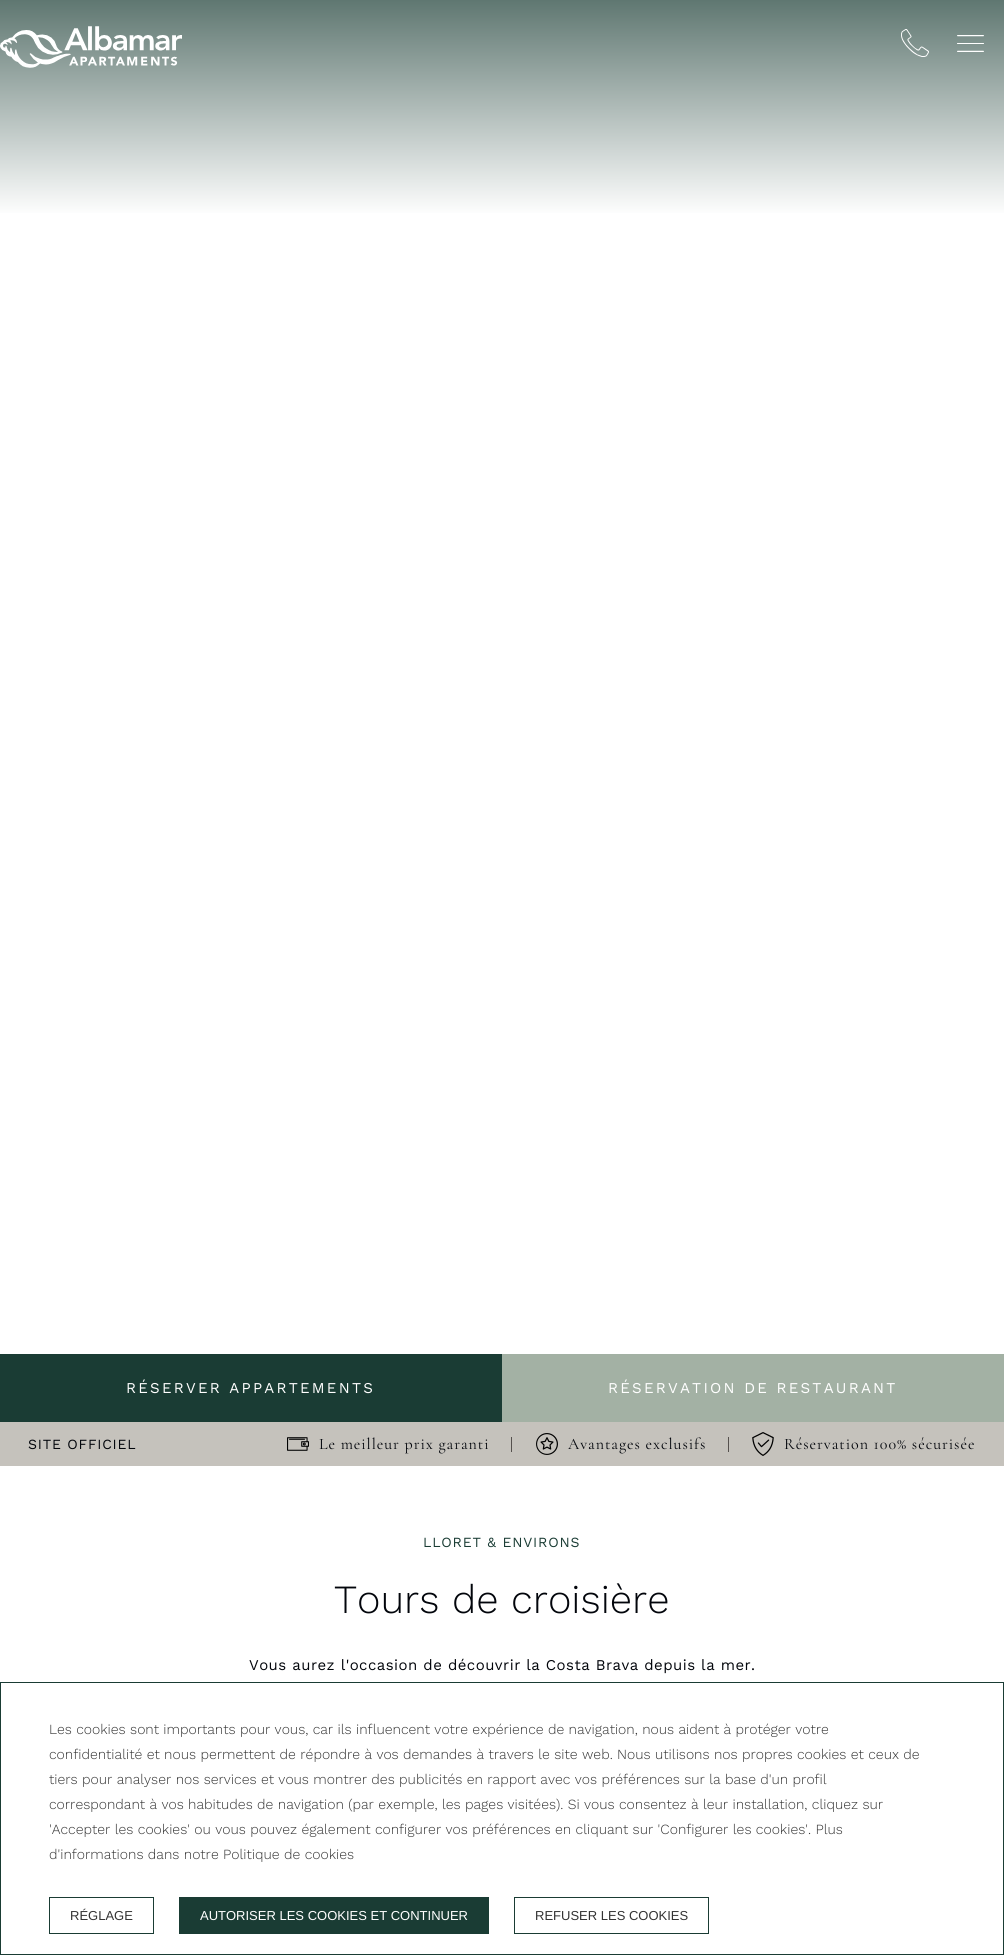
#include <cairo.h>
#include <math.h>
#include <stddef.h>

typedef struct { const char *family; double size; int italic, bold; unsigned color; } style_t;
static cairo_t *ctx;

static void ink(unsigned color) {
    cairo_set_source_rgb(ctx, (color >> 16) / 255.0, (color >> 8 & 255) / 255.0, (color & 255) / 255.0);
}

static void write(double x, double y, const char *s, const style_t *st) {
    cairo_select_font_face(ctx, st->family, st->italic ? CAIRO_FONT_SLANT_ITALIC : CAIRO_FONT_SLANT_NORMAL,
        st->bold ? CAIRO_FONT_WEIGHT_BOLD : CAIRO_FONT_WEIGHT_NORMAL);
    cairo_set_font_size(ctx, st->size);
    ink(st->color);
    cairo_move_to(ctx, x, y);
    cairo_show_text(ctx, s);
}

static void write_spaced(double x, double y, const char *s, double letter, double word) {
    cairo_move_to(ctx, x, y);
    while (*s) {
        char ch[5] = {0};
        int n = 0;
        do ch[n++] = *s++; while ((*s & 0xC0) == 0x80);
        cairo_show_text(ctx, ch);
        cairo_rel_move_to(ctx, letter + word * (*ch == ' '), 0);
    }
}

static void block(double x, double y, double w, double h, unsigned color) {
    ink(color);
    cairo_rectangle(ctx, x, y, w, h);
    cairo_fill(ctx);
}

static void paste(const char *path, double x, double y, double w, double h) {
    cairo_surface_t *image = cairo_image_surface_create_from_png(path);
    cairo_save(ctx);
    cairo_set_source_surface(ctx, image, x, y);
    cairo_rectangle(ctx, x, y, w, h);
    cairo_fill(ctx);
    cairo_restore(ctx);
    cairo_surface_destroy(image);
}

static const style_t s1 = {"Work Sans Light", 40, 0, 0, 0x02050b};
static const style_t s2 = {"Work Sans Light", 14, 0, 0, 0x333333};
static const style_t s3 = {"Liberation Sans", 13, 0, 0, 0x333333};
static const style_t s4 = {"Liberation Sans", 13, 0, 0, 0xffffff};

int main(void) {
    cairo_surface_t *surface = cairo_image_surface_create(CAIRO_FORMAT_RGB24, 1004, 1955);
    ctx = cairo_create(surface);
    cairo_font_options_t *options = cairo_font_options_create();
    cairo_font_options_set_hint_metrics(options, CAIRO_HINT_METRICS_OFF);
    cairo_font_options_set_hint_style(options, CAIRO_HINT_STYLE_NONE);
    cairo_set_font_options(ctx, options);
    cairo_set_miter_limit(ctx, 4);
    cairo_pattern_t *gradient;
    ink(0xffffff);
    cairo_paint(ctx);
    gradient = cairo_pattern_create_linear(502, 0, 502, 216);
    cairo_pattern_add_color_stop_rgba(gradient, 0, 0.373, 0.467, 0.443, 1);
    cairo_pattern_add_color_stop_rgba(gradient, 1, 1, 1, 1, 1);
    cairo_set_source(ctx, gradient);
    cairo_pattern_destroy(gradient);
    cairo_rectangle(ctx, 0, 0, 1004, 213);
    cairo_fill(ctx);
    paste("pic1.png", 0, 26, 182, 42);
    paste("pic2.png", 901, 29, 28, 28);
    paste("pic3.png", 957, 35, 27, 17);
    block(0, 1354, 502, 68, 0x1a3c34);
    cairo_select_font_face(ctx, "Work Sans", CAIRO_FONT_SLANT_NORMAL, CAIRO_FONT_WEIGHT_NORMAL);
    cairo_set_font_size(ctx, 15);
    ink(0xffffff);
    write_spaced(126, 1393, "RÉSERVER APPARTEMENTS", 2.25, 0);
    block(502, 1354, 502, 68, 0xa3b1a4);
    ink(0xffffff);
    write_spaced(608, 1393, "RÉSERVATION DE RESTAURANT", 2.25, 0);
    block(0, 1422, 1004, 44, 0xc5c2bc);
    cairo_set_font_size(ctx, 14);
    ink(0x02050b);
    write_spaced(28, 1449, "SITE OFFICIEL", 0.8, 0);
    paste("pic4.png", 287, 1437, 22, 14);
    cairo_select_font_face(ctx, "Cormorant Garamond", CAIRO_FONT_SLANT_NORMAL, CAIRO_FONT_WEIGHT_NORMAL);
    cairo_set_font_size(ctx, 16);
    write_spaced(319, 1449, "Le meilleur prix garanti", 0.95, 0);
    block(511, 1437, 1, 15, 0x55504d);
    paste("pic5.png", 536, 1433, 22, 22);
    ink(0x02050b);
    write_spaced(568, 1449, "Avantages exclusifs", 0.95, 0);
    block(728, 1437, 1, 15, 0x55504d);
    paste("pic6.png", 752, 1432, 22, 24);
    ink(0x02050b);
    write_spaced(784, 1449, "Réservation 100% sécurisée", 0.95, 0);
    cairo_select_font_face(ctx, "Work Sans", CAIRO_FONT_SLANT_NORMAL, CAIRO_FONT_WEIGHT_NORMAL);
    cairo_set_font_size(ctx, 14);
    ink(0x1a3c34);
    write_spaced(423, 1547, "LLORET & ENVIRONS", 0.8, 0);
    write(334, 1613, "Tours de croisière", &s1);
    cairo_select_font_face(ctx, "Work Sans", CAIRO_FONT_SLANT_NORMAL, CAIRO_FONT_WEIGHT_NORMAL);
    cairo_set_font_size(ctx, 14.95);
    write_spaced(249, 1670, "Vous aurez l'occasion de découvrir la Costa Brava depuis la mer.", 0.48, 0);
    cairo_rectangle(ctx, 0.5, 1682.5, 1003, 272);
    ink(0x1a3c34);
    cairo_set_line_width(ctx, 1);
    cairo_stroke(ctx);
    write(49, 1734, "Les cookies sont importants pour vous, car ils influencent votre expérience de navigation, nous aident à protéger votre", &s2);
    write(49, 1759, "confidentialité et nous permettent de répondre à vos demandes à travers le site web. Nous utilisons nos propres cookies et ceux de", &s2);
    write(49, 1784, "tiers pour analyser nos services et vous montrer des publicités en rapport avec vos préférences sur la base d'un profil", &s2);
    write(49, 1809, "correspondant à vos habitudes de navigation (par exemple, les pages visitées). Si vous consentez à leur installation, cliquez sur", &s2);
    write(49, 1834, "'Accepter les cookies' ou vous pouvez également configurer vos préférences en cliquant sur 'Configurer les cookies'. Plus", &s2);
    write(49, 1859, "d'informations dans notre Politique de cookies", &s2);
    cairo_rectangle(ctx, 49.5, 1897.5, 104, 36);
    ink(0x1a3c34);
    cairo_stroke(ctx);
    write(70, 1920, "RÉGLAGE", &s3);
    block(179, 1897, 310, 37, 0x1a3c34);
    write(200, 1920, "AUTORISER LES COOKIES ET CONTINUER", &s4);
    cairo_rectangle(ctx, 514.5, 1897.5, 194, 36);
    ink(0x1a3c34);
    cairo_stroke(ctx);
    write(535, 1920, "REFUSER LES COOKIES", &s3);
    cairo_surface_write_to_png(surface, "screenshot.png");
    cairo_font_options_destroy(options);
    cairo_destroy(ctx);
    cairo_surface_destroy(surface);
    return 0;
}
